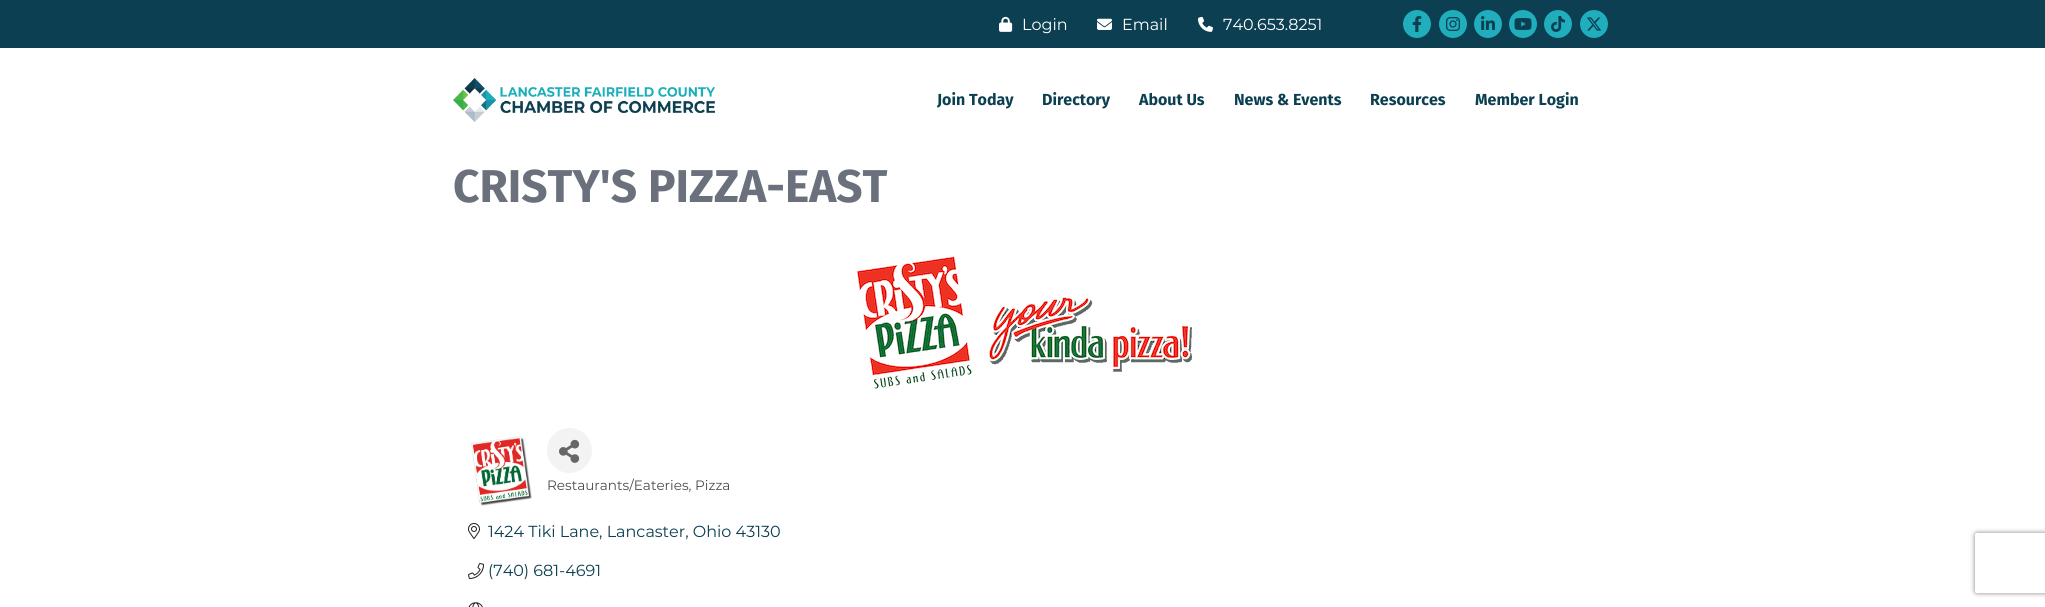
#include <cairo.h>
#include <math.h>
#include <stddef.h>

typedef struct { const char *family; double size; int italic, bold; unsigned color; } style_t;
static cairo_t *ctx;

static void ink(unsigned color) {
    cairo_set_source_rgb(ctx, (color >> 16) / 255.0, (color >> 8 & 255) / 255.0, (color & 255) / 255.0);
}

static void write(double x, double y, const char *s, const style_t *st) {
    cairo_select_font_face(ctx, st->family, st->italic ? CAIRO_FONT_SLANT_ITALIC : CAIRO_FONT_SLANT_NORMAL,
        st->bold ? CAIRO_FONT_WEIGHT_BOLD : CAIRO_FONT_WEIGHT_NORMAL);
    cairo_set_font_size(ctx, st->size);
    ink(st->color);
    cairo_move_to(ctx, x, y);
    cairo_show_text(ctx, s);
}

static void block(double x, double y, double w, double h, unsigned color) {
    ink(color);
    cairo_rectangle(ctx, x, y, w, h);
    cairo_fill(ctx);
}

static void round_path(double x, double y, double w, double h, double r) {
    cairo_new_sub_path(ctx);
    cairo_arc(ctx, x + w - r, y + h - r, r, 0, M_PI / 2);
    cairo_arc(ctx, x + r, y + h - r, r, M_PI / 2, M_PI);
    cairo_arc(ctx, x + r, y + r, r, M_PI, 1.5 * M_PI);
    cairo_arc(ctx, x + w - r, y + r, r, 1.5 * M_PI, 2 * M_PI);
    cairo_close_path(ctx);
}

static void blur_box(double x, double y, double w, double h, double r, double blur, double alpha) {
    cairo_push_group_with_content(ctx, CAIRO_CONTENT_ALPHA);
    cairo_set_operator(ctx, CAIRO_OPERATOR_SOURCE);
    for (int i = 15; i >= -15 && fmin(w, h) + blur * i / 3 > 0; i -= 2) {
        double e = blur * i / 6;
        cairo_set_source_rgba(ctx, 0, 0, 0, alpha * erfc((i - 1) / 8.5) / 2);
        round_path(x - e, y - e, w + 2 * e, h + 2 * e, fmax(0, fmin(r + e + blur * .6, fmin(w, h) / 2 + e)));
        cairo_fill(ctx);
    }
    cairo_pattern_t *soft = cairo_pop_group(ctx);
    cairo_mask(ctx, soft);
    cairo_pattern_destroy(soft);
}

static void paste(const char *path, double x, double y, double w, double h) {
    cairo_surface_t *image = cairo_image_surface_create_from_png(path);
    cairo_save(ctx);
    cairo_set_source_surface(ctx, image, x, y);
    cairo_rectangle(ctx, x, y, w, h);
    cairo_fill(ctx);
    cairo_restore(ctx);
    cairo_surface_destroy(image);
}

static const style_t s1 = {"Montserrat", 16, 0, 0, 0xffffff};
static const style_t s2 = {"Fira Sans", 16, 0, 1, 0x0b3f51};
static const style_t s3 = {"Fira Sans", 46, 0, 1, 0x6a707c};
static const style_t s4 = {"Montserrat", 13.6, 0, 0, 0x4f4c4d};
static const style_t s5 = {"Montserrat", 16, 0, 0, 0x0b3f51};

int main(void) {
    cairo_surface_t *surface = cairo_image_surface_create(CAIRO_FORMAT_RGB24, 2045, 607);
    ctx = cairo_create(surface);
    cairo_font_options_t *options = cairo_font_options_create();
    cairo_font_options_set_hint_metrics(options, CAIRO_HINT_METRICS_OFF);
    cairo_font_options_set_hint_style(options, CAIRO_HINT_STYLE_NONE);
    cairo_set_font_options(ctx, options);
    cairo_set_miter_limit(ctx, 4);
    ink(0x0b3f51);
    cairo_paint(ctx);
    paste("pic1.png", 999, 16, 14, 16);
    write(1022, 30, "Login", &s1);
    paste("pic2.png", 1097, 18, 15, 12);
    write(1122, 30, "Email", &s1);
    paste("pic3.png", 1198, 16, 15, 16);
    write(1223, 30, "740.653.8251", &s1);
    ink(0x20adbc);
    cairo_new_path(ctx);
    cairo_arc(ctx, 1417, 24, 14, 0, 2 * M_PI);
    cairo_fill(ctx);
    paste("pic4.png", 1412, 16, 10, 16);
    cairo_arc(ctx, 1453, 24, 14, 0, 2 * M_PI);
    cairo_fill(ctx);
    paste("pic5.png", 1446, 17, 14, 14);
    cairo_arc(ctx, 1488, 24, 14, 0, 2 * M_PI);
    cairo_fill(ctx);
    paste("pic6.png", 1481, 16, 14, 14);
    cairo_arc(ctx, 1523, 24, 14, 0, 2 * M_PI);
    cairo_fill(ctx);
    paste("pic7.png", 1514, 18, 18, 12);
    cairo_arc(ctx, 1558, 24, 14, 0, 2 * M_PI);
    cairo_fill(ctx);
    paste("pic8.png", 1551, 16, 14, 16);
    cairo_arc(ctx, 1594, 24, 14, 0, 2 * M_PI);
    cairo_fill(ctx);
    paste("pic9.png", 1587, 17, 15, 14);
    block(0, 48, 2045, 559, 0xffffff);
    paste("pic10.png", 453, 78, 262, 44);
    write(937, 105, "Join Today", &s2);
    write(1042, 105, "Directory", &s2);
    write(1139, 105, "About Us", &s2);
    write(1234, 105, "News & Events", &s2);
    write(1370, 105, "Resources", &s2);
    write(1475, 105, "Member Login", &s2);
    write(453, 202, "CRISTY'S PIZZA-EAST", &s3);
    paste("pic11.png", 857, 256, 335, 133);
    paste("pic12.png", 471, 436, 61, 70);
    ink(0xf3f3f3);
    cairo_arc(ctx, 569.5, 450.5, 22.5, 0, 2 * M_PI);
    cairo_fill(ctx);
    paste("pic13.png", 559, 439, 21, 24);
    write(547, 490, "Restaurants/Eateries, Pizza", &s4);
    paste("pic14.png", 468, 523, 12, 16);
    write(488, 537, "1424 Tiki Lane, Lancaster, Ohio 43130", &s5);
    paste("pic15.png", 468, 563, 16, 16);
    write(488, 576, "(740) 681-4691", &s5);
    paste("pic16.png", 468, 602, 15, 5);
    cairo_save(ctx);
    cairo_set_fill_rule(ctx, CAIRO_FILL_RULE_EVEN_ODD);
    cairo_new_path(ctx);
    cairo_move_to(ctx, 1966, 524);
    cairo_line_to(ctx, 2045, 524);
    cairo_line_to(ctx, 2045, 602);
    cairo_line_to(ctx, 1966, 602);
    cairo_close_path(ctx);
    cairo_move_to(ctx, 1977, 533);
    cairo_line_to(ctx, 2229, 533);
    cairo_curve_to(ctx, 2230, 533, 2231, 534, 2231, 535);
    cairo_line_to(ctx, 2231, 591);
    cairo_curve_to(ctx, 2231, 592, 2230, 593, 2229, 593);
    cairo_line_to(ctx, 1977, 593);
    cairo_curve_to(ctx, 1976, 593, 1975, 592, 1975, 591);
    cairo_line_to(ctx, 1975, 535);
    cairo_curve_to(ctx, 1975, 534, 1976, 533, 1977, 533);
    cairo_close_path(ctx);
    cairo_clip(ctx);
    ink(0x808080);
    blur_box(1975, 533, 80, 60, 2, 2.5, 1);
    cairo_restore(ctx);
    cairo_surface_write_to_png(surface, "screenshot.png");
    cairo_font_options_destroy(options);
    cairo_destroy(ctx);
    cairo_surface_destroy(surface);
    return 0;
}
